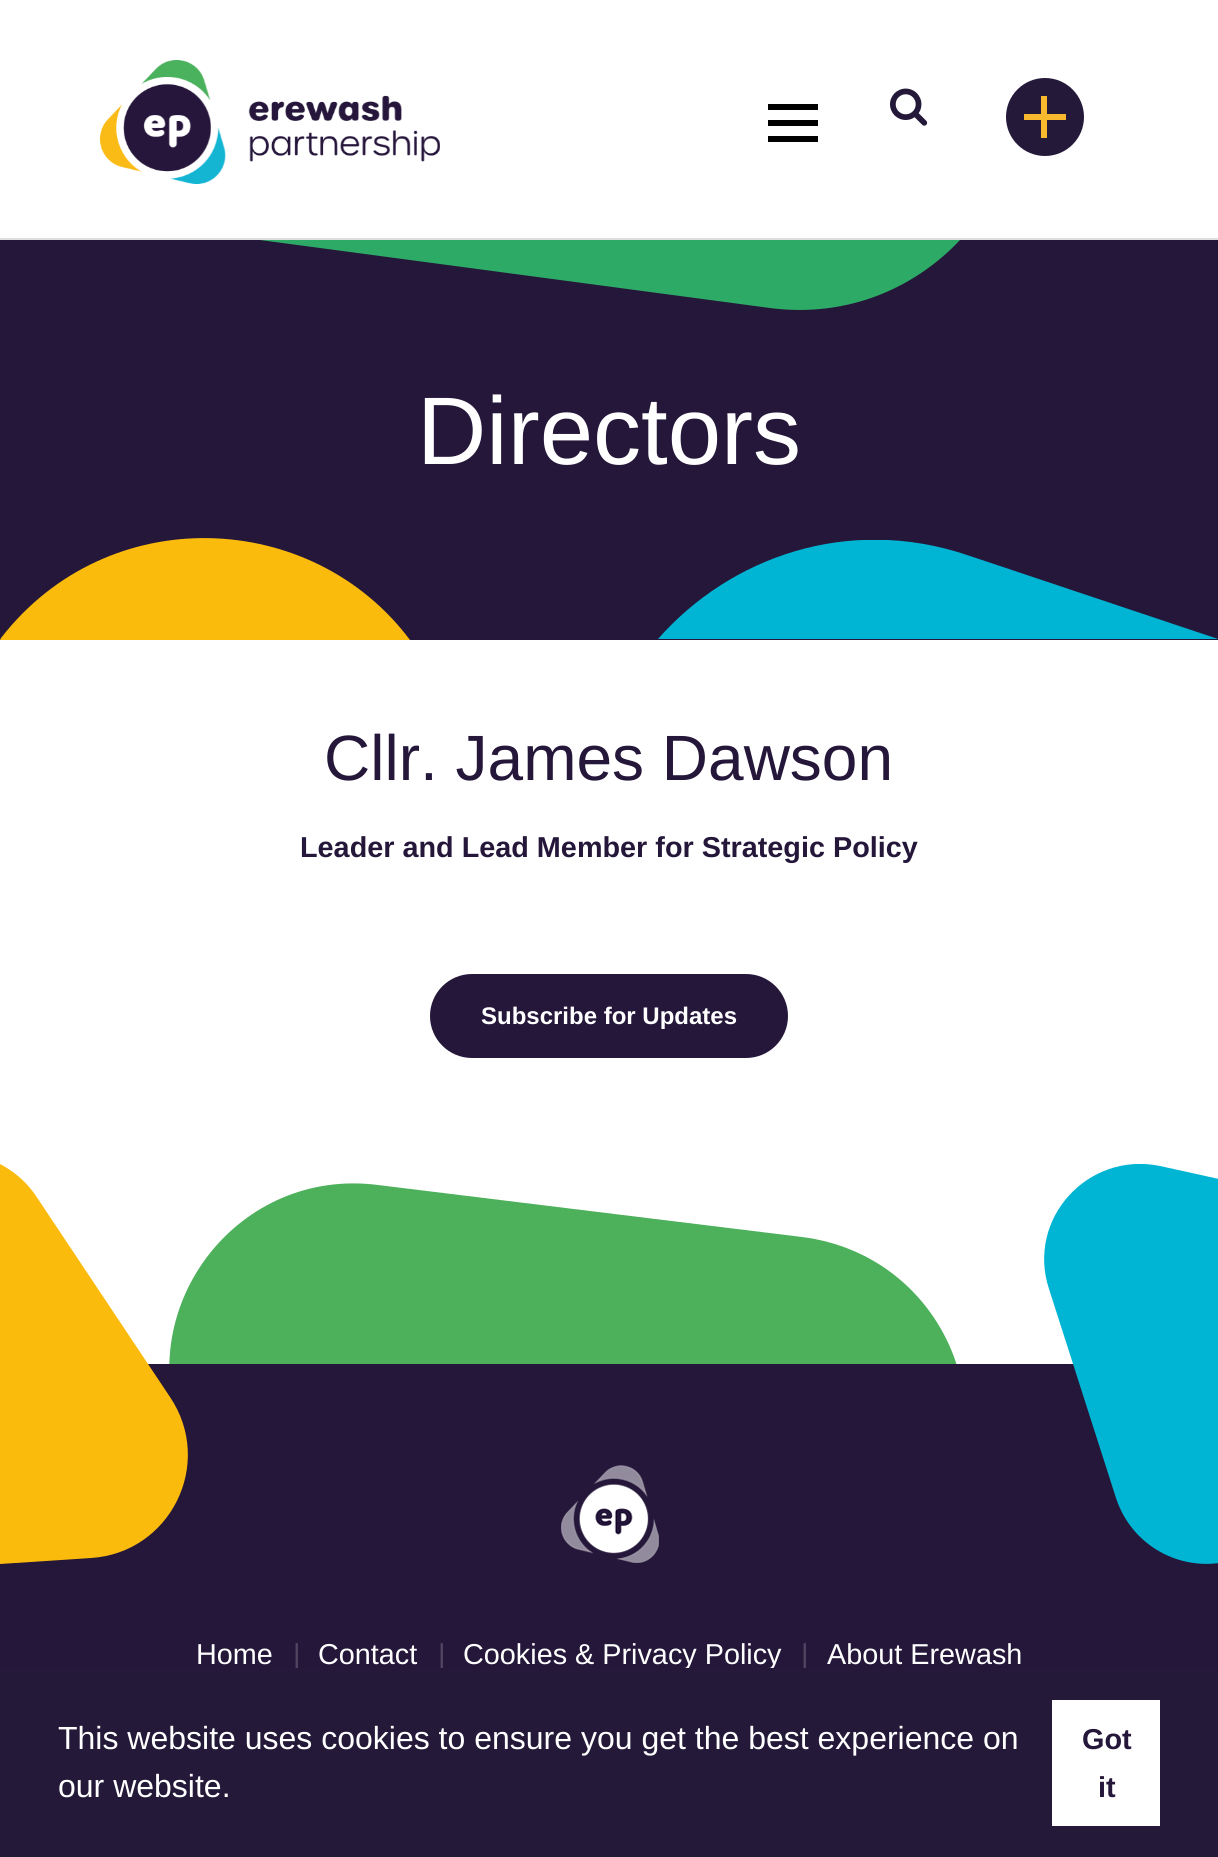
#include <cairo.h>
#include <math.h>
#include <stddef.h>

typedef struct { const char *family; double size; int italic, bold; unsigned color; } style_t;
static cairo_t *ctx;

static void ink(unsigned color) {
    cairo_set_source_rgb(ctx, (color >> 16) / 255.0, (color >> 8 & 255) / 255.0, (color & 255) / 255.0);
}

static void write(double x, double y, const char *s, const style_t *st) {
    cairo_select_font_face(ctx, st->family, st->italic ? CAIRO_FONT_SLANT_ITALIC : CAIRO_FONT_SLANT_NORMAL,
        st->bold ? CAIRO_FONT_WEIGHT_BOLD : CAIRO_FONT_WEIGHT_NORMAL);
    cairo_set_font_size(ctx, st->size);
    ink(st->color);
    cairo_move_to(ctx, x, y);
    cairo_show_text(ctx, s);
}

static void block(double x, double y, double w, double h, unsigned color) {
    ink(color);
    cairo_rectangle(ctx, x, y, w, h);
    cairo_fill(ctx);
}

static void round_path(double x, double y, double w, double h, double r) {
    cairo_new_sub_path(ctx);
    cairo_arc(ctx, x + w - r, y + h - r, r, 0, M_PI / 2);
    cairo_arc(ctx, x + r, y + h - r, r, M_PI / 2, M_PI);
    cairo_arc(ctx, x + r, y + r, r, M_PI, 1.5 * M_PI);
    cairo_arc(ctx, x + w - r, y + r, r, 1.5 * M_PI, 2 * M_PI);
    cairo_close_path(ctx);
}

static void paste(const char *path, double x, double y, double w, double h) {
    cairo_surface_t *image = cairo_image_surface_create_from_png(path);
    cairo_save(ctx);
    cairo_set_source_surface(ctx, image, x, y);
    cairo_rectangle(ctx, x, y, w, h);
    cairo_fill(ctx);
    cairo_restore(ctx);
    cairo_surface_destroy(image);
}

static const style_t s1 = {"Liberation Sans", 96, 0, 0, 0xffffff};
static const style_t s2 = {"Liberation Sans", 64, 0, 0, 0x25173a};
static const style_t s3 = {"Liberation Sans", 28.8, 0, 1, 0x25173a};
static const style_t s4 = {"Liberation Sans", 24, 0, 1, 0xffffff};
static const style_t s5 = {"Liberation Sans", 28.8, 0, 0, 0xffffff};
static const style_t s6 = {"Liberation Sans", 28.8, 0, 0, 0x514561};
static const style_t s7 = {"Liberation Sans", 32, 0, 0, 0xffffff};

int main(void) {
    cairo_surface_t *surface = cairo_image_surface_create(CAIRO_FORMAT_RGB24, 1218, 1857);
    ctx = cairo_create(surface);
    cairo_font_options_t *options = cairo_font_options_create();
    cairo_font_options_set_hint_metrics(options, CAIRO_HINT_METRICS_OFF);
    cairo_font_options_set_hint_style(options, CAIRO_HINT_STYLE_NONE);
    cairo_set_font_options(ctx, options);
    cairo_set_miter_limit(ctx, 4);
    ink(0xffffff);
    cairo_paint(ctx);
    block(0, 238, 1218, 2, 0xdddddd);
    paste("pic1.png", 99, 60, 341, 124);
    block(768, 104, 50, 6, 0x000000);
    block(768, 120, 50, 6, 0x000000);
    block(768, 136, 50, 6, 0x000000);
    paste("pic2.png", 890, 88, 38, 38);
    ink(0x241939);
    cairo_arc(ctx, 1045, 117, 42, 0, 2 * M_PI);
    cairo_fill_preserve(ctx);
    ink(0xffffff);
    cairo_set_line_width(ctx, 6);
    cairo_stroke(ctx);
    block(1041, 96, 6, 42, 0xf9b92f);
    block(1024, 114, 42, 6, 0xf9b92f);
    block(0, 240, 1218, 400, 0x25173a);
    ink(0x2dab66);
    cairo_new_path(ctx);
    cairo_move_to(ctx, 260, 240);
    cairo_line_to(ctx, 770, 308);
    cairo_curve_to(ctx, 846, 318, 914, 289, 960, 240);
    cairo_close_path(ctx);
    cairo_fill(ctx);
    write(417, 464, "Directors", &s1);
    ink(0xfbbb0c);
    cairo_new_path(ctx);
    cairo_move_to(ctx, 1, 638);
    cairo_line_to(ctx, 0, 640);
    cairo_line_to(ctx, 410, 640);
    cairo_curve_to(ctx, 312, 509, 108, 500, 1, 638);
    cairo_close_path(ctx);
    cairo_fill(ctx);
    cairo_save(ctx);
    cairo_rectangle(ctx, 658, 540, 560, 100);
    cairo_clip(ctx);
    ink(0x00b5d3);
    cairo_new_path(ctx);
    cairo_move_to(ctx, 1218, 639);
    cairo_line_to(ctx, 967, 555);
    cairo_curve_to(ctx, 848, 515, 730, 557, 658, 639);
    cairo_close_path(ctx);
    cairo_fill(ctx);
    cairo_restore(ctx);
    write(324, 780, "Cllr. James Dawson", &s2);
    write(300, 857, "Leader and Lead Member for Strategic Policy", &s3);
    round_path(430, 974, 358, 84, 42);
    cairo_fill(ctx);
    write(481, 1024, "Subscribe for Updates", &s4);
    ink(0x4db05b);
    cairo_new_path(ctx);
    cairo_move_to(ctx, 802, 1237);
    cairo_line_to(ctx, 378, 1185);
    cairo_curve_to(ctx, 239, 1167, 133, 1304, 181, 1433);
    cairo_line_to(ctx, 356, 1847);
    cairo_curve_to(ctx, 400, 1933, 497, 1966, 579, 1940);
    cairo_line_to(ctx, 612, 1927);
    cairo_curve_to(ctx, 634, 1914, 654, 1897, 671, 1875);
    cairo_line_to(ctx, 928, 1533);
    cairo_curve_to(ctx, 1014, 1419, 945, 1255, 802, 1237);
    cairo_close_path(ctx);
    cairo_fill(ctx);
    block(0, 1364, 1218, 304, 0x25173a);
    ink(0xfbbb0c);
    cairo_new_path(ctx);
    cairo_move_to(ctx, 170, 1397);
    cairo_line_to(ctx, 38, 1199);
    cairo_curve_to(ctx, 28, 1183, 15, 1172, 0, 1164);
    cairo_line_to(ctx, 0, 1564);
    cairo_line_to(ctx, 91, 1558);
    cairo_curve_to(ctx, 170, 1553, 215, 1464, 170, 1397);
    cairo_close_path(ctx);
    cairo_fill(ctx);
    cairo_save(ctx);
    cairo_rectangle(ctx, 1044, 1164, 174, 400);
    cairo_clip(ctx);
    ink(0x00b5d3);
    cairo_new_path(ctx);
    cairo_move_to(ctx, 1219, 1179);
    cairo_line_to(ctx, 1160, 1166);
    cairo_curve_to(ctx, 1088, 1151, 1026, 1219, 1049, 1289);
    cairo_line_to(ctx, 1116, 1498);
    cairo_curve_to(ctx, 1131, 1544, 1176, 1569, 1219, 1563);
    cairo_close_path(ctx);
    cairo_fill(ctx);
    cairo_restore(ctx);
    paste("pic3.png", 561, 1465, 98, 98);
    write(196, 1664, "Home", &s5);
    write(293, 1664, "|", &s6);
    write(318, 1664, "Contact", &s5);
    write(438, 1664, "|", &s6);
    write(463, 1664, "Cookies & Privacy Policy", &s5);
    write(801, 1664, "|", &s6);
    write(827, 1664, "About Erewash", &s5);
    block(0, 1668, 1218, 189, 0x241939);
    write(58, 1749, "This website uses cookies to ensure you get the best experience on", &s7);
    write(58, 1797, "our website.", &s7);
    block(1052, 1700, 108, 126, 0xffffff);
    write(1082, 1749, "Got", &s3);
    write(1098, 1797, "it", &s3);
    cairo_surface_write_to_png(surface, "screenshot.png");
    cairo_font_options_destroy(options);
    cairo_destroy(ctx);
    cairo_surface_destroy(surface);
    return 0;
}
